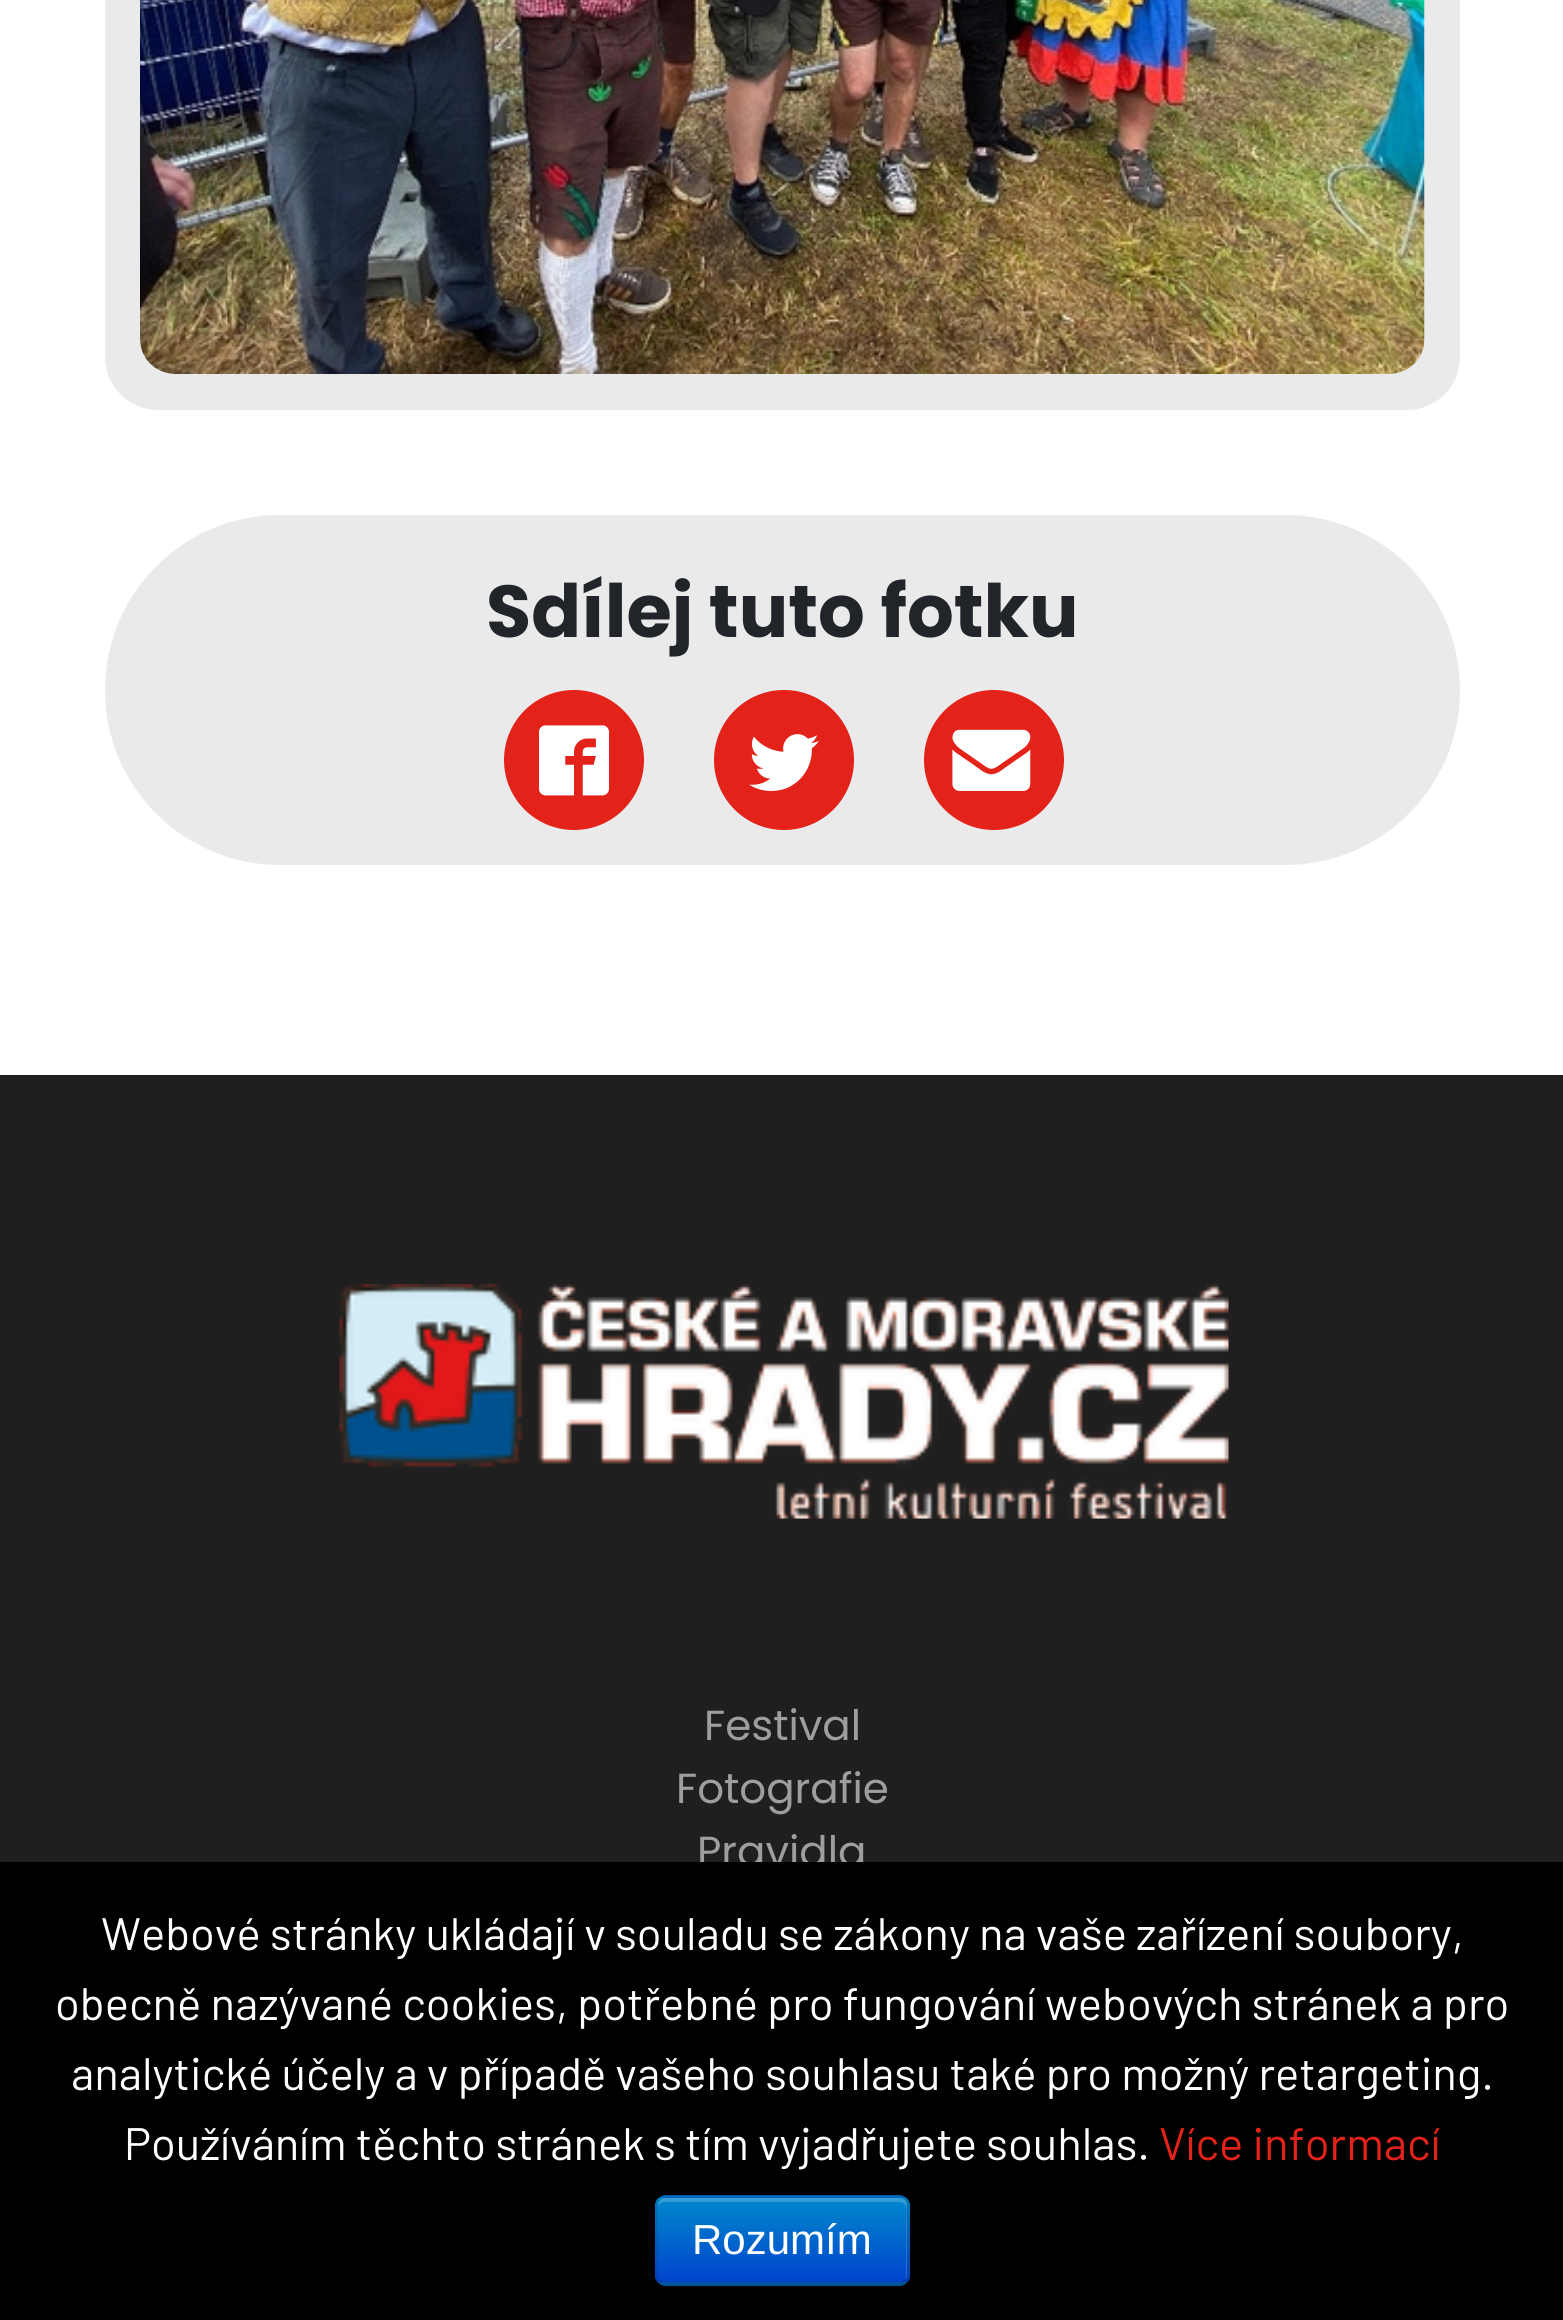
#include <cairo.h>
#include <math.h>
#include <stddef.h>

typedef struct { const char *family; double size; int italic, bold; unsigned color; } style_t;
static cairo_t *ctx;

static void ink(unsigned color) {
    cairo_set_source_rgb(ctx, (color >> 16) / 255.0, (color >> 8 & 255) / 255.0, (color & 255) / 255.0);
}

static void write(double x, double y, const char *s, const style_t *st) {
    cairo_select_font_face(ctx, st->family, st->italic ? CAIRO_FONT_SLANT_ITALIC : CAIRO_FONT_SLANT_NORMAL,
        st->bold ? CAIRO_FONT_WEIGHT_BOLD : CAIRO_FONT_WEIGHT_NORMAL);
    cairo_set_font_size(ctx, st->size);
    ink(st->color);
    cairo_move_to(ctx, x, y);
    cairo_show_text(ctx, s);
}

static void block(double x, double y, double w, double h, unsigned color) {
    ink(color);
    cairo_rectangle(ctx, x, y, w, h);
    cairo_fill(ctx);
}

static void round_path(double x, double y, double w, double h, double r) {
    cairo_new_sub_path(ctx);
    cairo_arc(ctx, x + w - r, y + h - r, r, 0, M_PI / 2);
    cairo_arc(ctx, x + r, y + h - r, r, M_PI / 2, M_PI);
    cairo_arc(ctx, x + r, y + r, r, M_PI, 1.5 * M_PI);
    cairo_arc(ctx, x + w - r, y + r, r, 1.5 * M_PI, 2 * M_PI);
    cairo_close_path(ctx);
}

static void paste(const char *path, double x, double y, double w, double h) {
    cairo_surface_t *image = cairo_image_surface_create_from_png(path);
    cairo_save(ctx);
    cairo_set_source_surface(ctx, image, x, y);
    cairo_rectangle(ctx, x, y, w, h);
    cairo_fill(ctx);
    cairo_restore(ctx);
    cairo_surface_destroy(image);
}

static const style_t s1 = {"Poppins", 73.5, 0, 1, 0x212529};
static const style_t s2 = {"Poppins", 42, 0, 0, 0x9e9e9e};
static const style_t s3 = {"Barlow", 45.5, 0, 0, 0xffffff};
static const style_t s4 = {"Barlow", 45.5, 0, 0, 0xe32219};
static const style_t s5 = {"Liberation Sans", 42, 0, 0, 0xffffff};

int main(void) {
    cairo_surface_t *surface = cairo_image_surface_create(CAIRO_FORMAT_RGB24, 1563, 2320);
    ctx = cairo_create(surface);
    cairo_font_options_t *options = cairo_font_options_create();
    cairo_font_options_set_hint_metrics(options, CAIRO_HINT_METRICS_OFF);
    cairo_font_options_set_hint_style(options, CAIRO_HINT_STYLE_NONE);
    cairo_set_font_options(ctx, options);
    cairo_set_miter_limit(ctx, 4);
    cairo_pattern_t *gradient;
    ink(0xffffff);
    cairo_paint(ctx);
    ink(0xeaeaea);
    round_path(105, -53, 1355, 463, 53);
    cairo_fill(ctx);
    paste("pic1.png", 140, 0, 1285, 374);
    round_path(105, 515, 1355, 350, 175);
    cairo_fill(ctx);
    write(486, 637, "Sdílej tuto fotku", &s1);
    ink(0xe32219);
    cairo_new_path(ctx);
    cairo_arc(ctx, 574, 760, 70, 0, 2 * M_PI);
    cairo_fill(ctx);
    paste("pic2.png", 539, 725, 70, 71);
    cairo_arc(ctx, 784, 760, 70, 0, 2 * M_PI);
    cairo_fill(ctx);
    paste("pic3.png", 749, 734, 70, 57);
    cairo_arc(ctx, 994, 760, 70, 0, 2 * M_PI);
    cairo_fill(ctx);
    paste("pic4.png", 952, 729, 79, 62);
    block(0, 1075, 1563, 787, 0x1f1f1f);
    paste("pic5.png", 339, 1284, 890, 235);
    write(704, 1740, "Festival", &s2);
    write(676, 1803, "Fotografie", &s2);
    write(697, 1866, "Pravidla", &s2);
    block(0, 1862, 1563, 458, 0x000000);
    write(101, 1950, "Webové stránky ukládají v souladu se zákony na vaše zařízení soubory,", &s3);
    write(55, 2020, "obecně nazývané cookies, potřebné pro fungování webových stránek a pro", &s3);
    write(71, 2090, "analytické účely a v případě vašeho souhlasu také pro možný retargeting.", &s3);
    write(124, 2160, "Používáním těchto stránek s tím vyjadřujete souhlas.", &s3);
    write(1159, 2160, "Více informací", &s4);
    ink(0x006dcc);
    round_path(655, 2195, 255, 91, 11);
    cairo_fill(ctx);
    cairo_save(ctx);
    round_path(655, 2195, 255, 91, 11);
    cairo_clip(ctx);
    gradient = cairo_pattern_create_linear(782, 2198, 782, 2282);
    cairo_pattern_add_color_stop_rgba(gradient, 0, 0, 0.533, 0.8, 1);
    cairo_pattern_add_color_stop_rgba(gradient, 1, 0, 0.267, 0.8, 1);
    cairo_set_source(ctx, gradient);
    cairo_pattern_destroy(gradient);
    cairo_rectangle(ctx, 655, 2198, 255, 84);
    cairo_fill(ctx);
    cairo_restore(ctx);
    cairo_set_source_rgba(ctx, 1, 1, 1, 0.2);
    cairo_new_path(ctx);
    cairo_move_to(ctx, 665, 2202);
    cairo_line_to(ctx, 900, 2202);
    cairo_curve_to(ctx, 909, 2202, 906, 2216, 906, 2220);
    cairo_line_to(ctx, 906, 2279);
    cairo_curve_to(ctx, 907, 2278, 907, 2276, 907, 2275);
    cairo_line_to(ctx, 907, 2205);
    cairo_curve_to(ctx, 907, 2201, 904, 2198, 900, 2198);
    cairo_line_to(ctx, 665, 2198);
    cairo_curve_to(ctx, 661, 2198, 658, 2201, 658, 2205);
    cairo_line_to(ctx, 658, 2208);
    cairo_curve_to(ctx, 658, 2205, 661, 2202, 665, 2202);
    cairo_close_path(ctx);
    cairo_fill(ctx);
    cairo_new_path(ctx);
    cairo_move_to(ctx, 905.5, 2281);
    cairo_curve_to(ctx, 904, 2283, 902, 2284, 899.5, 2284);
    cairo_line_to(ctx, 665, 2284);
    cairo_curve_to(ctx, 662.5, 2284, 660.5, 2283, 659, 2281);
    cairo_set_source_rgba(ctx, 0, 0, 0, 0.25);
    cairo_set_line_width(ctx, 3.5);
    cairo_stroke(ctx);
    cairo_new_path(ctx);
    cairo_move_to(ctx, 659, 2281);
    cairo_curve_to(ctx, 657, 2279.5, 656, 2277.5, 656, 2275);
    cairo_line_to(ctx, 656, 2205);
    cairo_curve_to(ctx, 656, 2202.5, 657, 2200.5, 659, 2199);
    cairo_curve_to(ctx, 660.5, 2197, 662.5, 2196, 665, 2196);
    cairo_line_to(ctx, 899.5, 2196);
    cairo_curve_to(ctx, 902, 2196, 904, 2197, 905.5, 2199);
    cairo_curve_to(ctx, 907.5, 2200.5, 908, 2202.5, 908, 2205);
    cairo_line_to(ctx, 908, 2275);
    cairo_curve_to(ctx, 908, 2277.5, 907.5, 2279.5, 905.5, 2281);
    cairo_set_source_rgba(ctx, 0, 0, 0, 0.1);
    cairo_stroke(ctx);
    write(692, 2254, "Rozumím", &s5);
    cairo_surface_write_to_png(surface, "screenshot.png");
    cairo_font_options_destroy(options);
    cairo_destroy(ctx);
    cairo_surface_destroy(surface);
    return 0;
}
